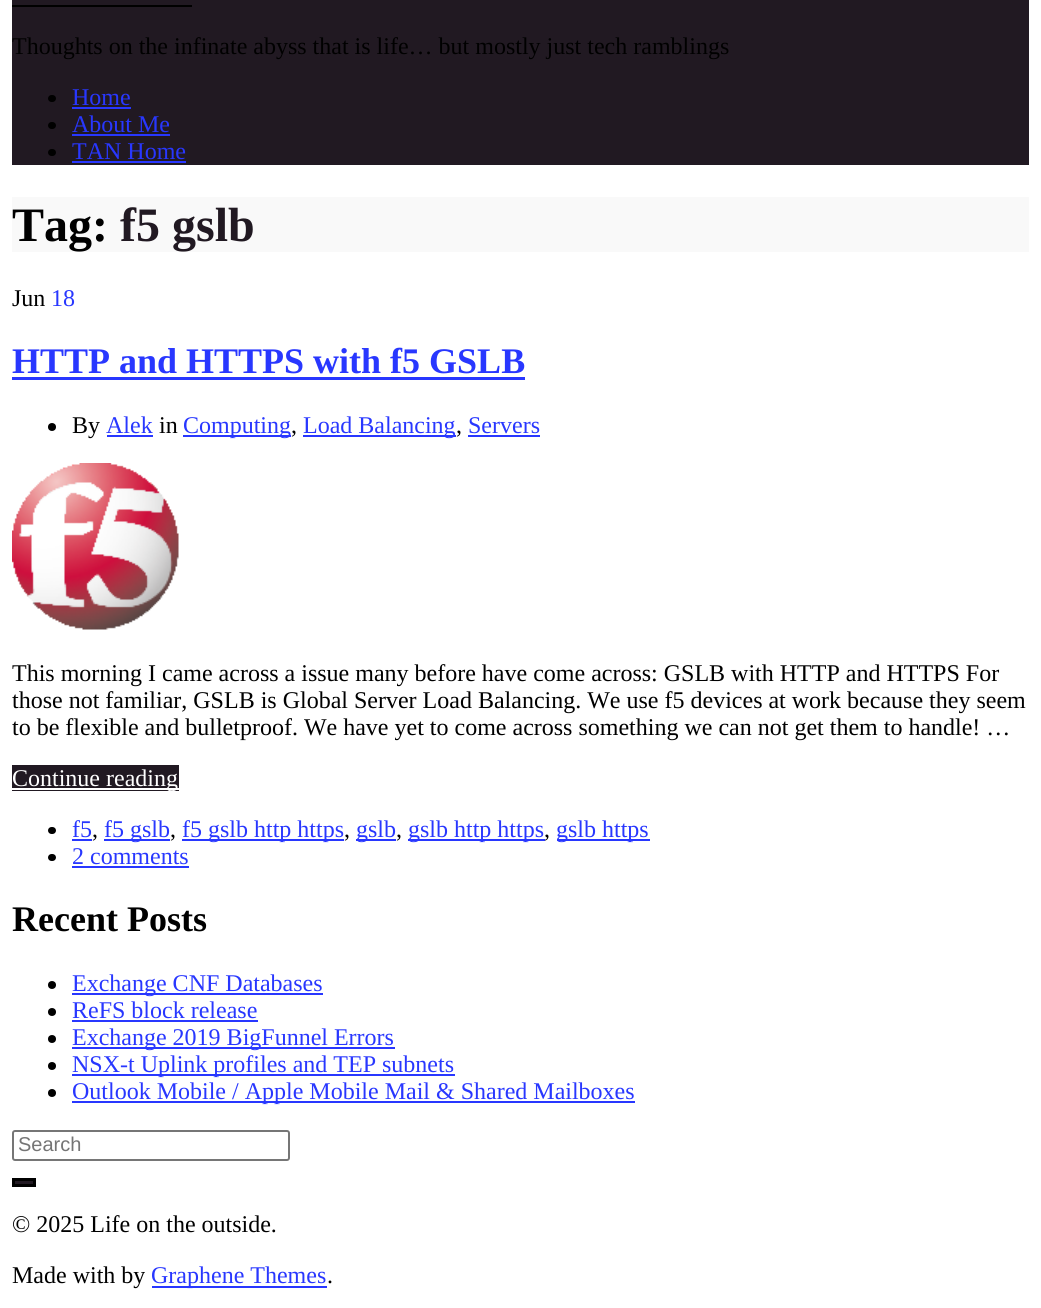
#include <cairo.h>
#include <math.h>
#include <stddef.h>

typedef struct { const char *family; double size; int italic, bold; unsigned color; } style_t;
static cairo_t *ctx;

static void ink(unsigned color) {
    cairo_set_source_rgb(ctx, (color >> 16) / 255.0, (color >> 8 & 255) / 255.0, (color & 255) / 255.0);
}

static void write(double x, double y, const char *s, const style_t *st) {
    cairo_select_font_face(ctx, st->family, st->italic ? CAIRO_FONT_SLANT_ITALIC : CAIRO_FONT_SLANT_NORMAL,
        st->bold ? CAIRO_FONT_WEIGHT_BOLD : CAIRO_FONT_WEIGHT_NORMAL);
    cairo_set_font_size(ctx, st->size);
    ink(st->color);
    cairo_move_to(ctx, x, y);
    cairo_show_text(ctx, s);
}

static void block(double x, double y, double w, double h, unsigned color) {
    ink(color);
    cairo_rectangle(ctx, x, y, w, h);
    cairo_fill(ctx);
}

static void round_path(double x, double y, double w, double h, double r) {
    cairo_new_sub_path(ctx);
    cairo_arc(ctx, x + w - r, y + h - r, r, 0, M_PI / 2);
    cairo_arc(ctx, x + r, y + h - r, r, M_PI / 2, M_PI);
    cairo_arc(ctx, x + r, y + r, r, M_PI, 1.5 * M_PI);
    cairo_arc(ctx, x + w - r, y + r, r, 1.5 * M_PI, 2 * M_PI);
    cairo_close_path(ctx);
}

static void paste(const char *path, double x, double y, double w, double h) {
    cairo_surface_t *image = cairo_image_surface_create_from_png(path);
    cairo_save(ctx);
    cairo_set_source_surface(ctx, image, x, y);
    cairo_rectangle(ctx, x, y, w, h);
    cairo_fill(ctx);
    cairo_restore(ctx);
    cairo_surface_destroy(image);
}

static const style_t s1 = {"Liberation Serif", 24, 0, 0, 0x000000};
static const style_t s2 = {"Liberation Serif", 24, 0, 0, 0x2837ff};
static const style_t s3 = {"Liberation Serif", 48, 0, 1, 0x000000};
static const style_t s4 = {"Liberation Serif", 48, 0, 1, 0x211922};
static const style_t s5 = {"Liberation Serif", 36, 0, 1, 0x2837ff};
static const style_t s6 = {"Liberation Serif", 24, 0, 0, 0xffffff};
static const style_t s7 = {"Liberation Serif", 36, 0, 1, 0x000000};
static const style_t s8 = {"Liberation Sans", 20, 0, 0, 0x757575};

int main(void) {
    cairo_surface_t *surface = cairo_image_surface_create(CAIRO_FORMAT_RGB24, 1041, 1308);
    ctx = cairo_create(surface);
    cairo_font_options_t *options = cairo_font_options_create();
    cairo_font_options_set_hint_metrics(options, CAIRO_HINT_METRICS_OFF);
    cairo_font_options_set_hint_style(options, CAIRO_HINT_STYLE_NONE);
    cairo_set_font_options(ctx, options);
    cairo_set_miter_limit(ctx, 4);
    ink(0xffffff);
    cairo_paint(ctx);
    block(12, 0, 1017, 165, 0x211922);
    block(12, 5, 180, 2, 0x000000);
    write(12, 54, "Thoughts on the infinate abyss that is life… but mostly just tech ramblings", &s1);
    round_path(48, 95, 8, 7, 3.5);
    cairo_fill(ctx);
    write(72, 105, "Home", &s2);
    block(72, 107, 59, 2, 0x2837ff);
    ink(0x000000);
    round_path(48, 122, 8, 7, 3.5);
    cairo_fill(ctx);
    write(72, 132, "About Me", &s2);
    block(72, 134, 98, 2, 0x2837ff);
    ink(0x000000);
    round_path(48, 149, 8, 7, 3.5);
    cairo_fill(ctx);
    write(72, 159, "TAN Home", &s2);
    block(72, 161, 114, 2, 0x2837ff);
    block(12, 197, 1017, 55, 0xf9f9f9);
    write(12, 241, "Tag:", &s3);
    write(120, 241, "f5 gslb", &s4);
    write(12, 306, "Jun", &s1);
    write(51, 306, "18", &s2);
    write(12, 373, "HTTP and HTTPS with f5 GSLB", &s5);
    block(12, 377, 513, 3, 0x2837ff);
    ink(0x000000);
    cairo_new_path(ctx);
    cairo_arc(ctx, 52, 427, 4, 0, 2 * M_PI);
    cairo_fill(ctx);
    write(72, 433, "By", &s1);
    write(106, 433, "Alek", &s2);
    block(107, 435, 46, 2, 0x2837ff);
    write(159, 433, "in", &s1);
    block(183, 435, 108, 2, 0x2837ff);
    write(183, 433, "Computing", &s2);
    block(303, 435, 153, 2, 0x2837ff);
    write(303, 433, "Load Balancing", &s2);
    write(468, 433, "Servers", &s2);
    write(291, 433, ",", &s1);
    write(456, 433, ",", &s1);
    block(468, 435, 72, 2, 0x2837ff);
    paste("pic1.png", 12, 463, 167, 167);
    write(12, 681, "This morning I came across a issue many before have come across: GSLB with HTTP and HTTPS For", &s1);
    write(12, 708, "those not familiar, GSLB is Global Server Load Balancing. We use f5 devices at work because they seem", &s1);
    write(12, 735, "to be flexible and bulletproof. We have yet to come across something we can not get them to handle! …", &s1);
    block(12, 765, 167, 26, 0x211922);
    block(12, 788, 167, 2, 0xffffff);
    write(12, 786, "Continue reading", &s6);
    ink(0x000000);
    round_path(48, 827, 8, 7, 3.5);
    cairo_fill(ctx);
    write(72, 837, "f5", &s2);
    block(104, 839, 66, 2, 0x2837ff);
    write(104, 837, "f5 gslb", &s2);
    block(182, 839, 162, 2, 0x2837ff);
    write(182, 837, "f5 gslb http https", &s2);
    block(356, 839, 40, 2, 0x2837ff);
    write(356, 837, "gslb", &s2);
    block(408, 839, 137, 2, 0x2837ff);
    write(408, 837, "gslb http https", &s2);
    block(557, 839, 93, 2, 0x2837ff);
    write(556, 837, "gslb https", &s2);
    write(92, 837, ",", &s1);
    block(72, 839, 20, 2, 0x2837ff);
    write(170, 837, ",", &s1);
    write(344, 837, ",", &s1);
    write(396, 837, ",", &s1);
    write(544, 837, ",", &s1);
    round_path(48, 854, 8, 7, 3.5);
    cairo_fill(ctx);
    write(72, 864, "2 comments", &s2);
    block(72, 866, 117, 2, 0x2837ff);
    write(12, 931, "Recent Posts", &s7);
    cairo_new_path(ctx);
    cairo_arc(ctx, 52, 985, 4, 0, 2 * M_PI);
    cairo_fill(ctx);
    block(72, 993, 251, 2, 0x2837ff);
    write(72, 991, "Exchange CNF Databases", &s2);
    ink(0x000000);
    cairo_new_path(ctx);
    cairo_arc(ctx, 52, 1012, 4, 0, 2 * M_PI);
    cairo_fill(ctx);
    write(72, 1018, "ReFS block release", &s2);
    block(72, 1020, 186, 2, 0x2837ff);
    ink(0x000000);
    cairo_new_path(ctx);
    cairo_arc(ctx, 52, 1039, 4, 0, 2 * M_PI);
    cairo_fill(ctx);
    block(72, 1047, 323, 2, 0x2837ff);
    write(72, 1045, "Exchange 2019 BigFunnel Errors", &s2);
    ink(0x000000);
    cairo_new_path(ctx);
    cairo_arc(ctx, 52, 1066, 4, 0, 2 * M_PI);
    cairo_fill(ctx);
    block(72, 1074, 383, 2, 0x2837ff);
    write(72, 1072, "NSX-t Uplink profiles and TEP subnets", &s2);
    ink(0x000000);
    cairo_new_path(ctx);
    cairo_arc(ctx, 52, 1093, 4, 0, 2 * M_PI);
    cairo_fill(ctx);
    block(72, 1101, 563, 2, 0x2837ff);
    write(72, 1099, "Outlook Mobile / Apple Mobile Mail & Shared Mailboxes", &s2);
    round_path(13, 1131, 276, 29, 2);
    ink(0x767676);
    cairo_stroke(ctx);
    write(18, 1151, "Search", &s8);
    ink(0x211922);
    cairo_rectangle(ctx, 13.5, 1179.5, 21, 6);
    cairo_fill_preserve(ctx);
    ink(0x000000);
    cairo_set_line_width(ctx, 3);
    cairo_stroke(ctx);
    write(12, 1232, "© 2025 Life on the outside.", &s1);
    write(12, 1283, "Made with by", &s1);
    block(152, 1286, 175, 2, 0x2837ff);
    write(151, 1283, "Graphene Themes", &s2);
    write(327, 1283, ".", &s1);
    cairo_surface_write_to_png(surface, "screenshot.png");
    cairo_font_options_destroy(options);
    cairo_destroy(ctx);
    cairo_surface_destroy(surface);
    return 0;
}
